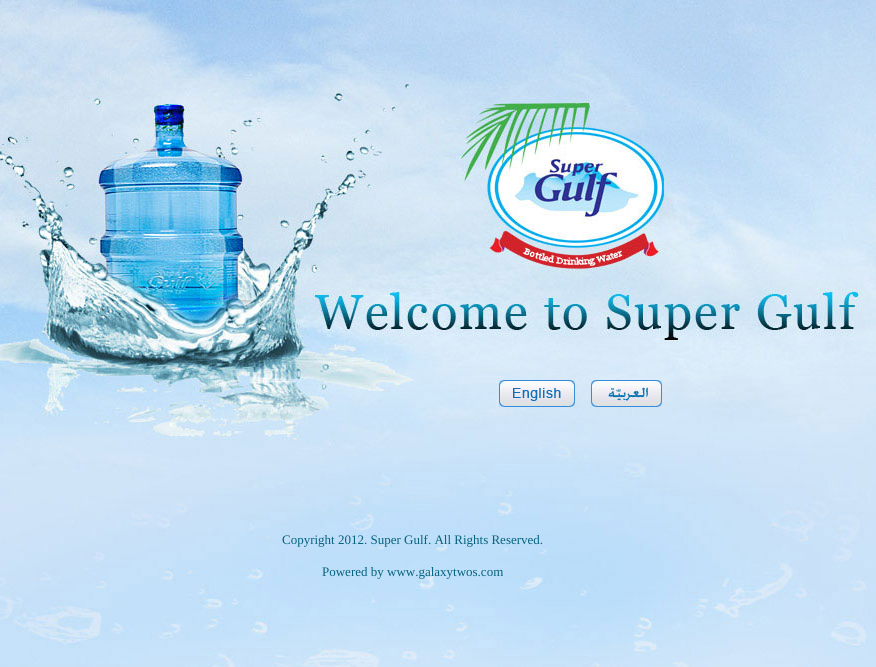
#include <cairo.h>
#include <math.h>
#include <stddef.h>

typedef struct { const char *family; double size; int italic, bold; unsigned color; } style_t;
static cairo_t *ctx;

static void ink(unsigned color) {
    cairo_set_source_rgb(ctx, (color >> 16) / 255.0, (color >> 8 & 255) / 255.0, (color & 255) / 255.0);
}

static void write(double x, double y, const char *s, const style_t *st) {
    cairo_select_font_face(ctx, st->family, st->italic ? CAIRO_FONT_SLANT_ITALIC : CAIRO_FONT_SLANT_NORMAL,
        st->bold ? CAIRO_FONT_WEIGHT_BOLD : CAIRO_FONT_WEIGHT_NORMAL);
    cairo_set_font_size(ctx, st->size);
    ink(st->color);
    cairo_move_to(ctx, x, y);
    cairo_show_text(ctx, s);
}

static void paste(const char *path, double x, double y, double w, double h) {
    cairo_surface_t *image = cairo_image_surface_create_from_png(path);
    cairo_save(ctx);
    cairo_set_source_surface(ctx, image, x, y);
    cairo_rectangle(ctx, x, y, w, h);
    cairo_fill(ctx);
    cairo_restore(ctx);
    cairo_surface_destroy(image);
}

static const style_t s1 = {"Liberation Serif", 13, 0, 0, 0x06627d};

int main(void) {
    cairo_surface_t *surface = cairo_image_surface_create(CAIRO_FORMAT_RGB24, 876, 667);
    ctx = cairo_create(surface);
    cairo_font_options_t *options = cairo_font_options_create();
    cairo_font_options_set_hint_metrics(options, CAIRO_HINT_METRICS_OFF);
    cairo_font_options_set_hint_style(options, CAIRO_HINT_STYLE_NONE);
    cairo_set_font_options(ctx, options);
    cairo_set_miter_limit(ctx, 4);
    ink(0xffffff);
    cairo_paint(ctx);
    paste("pic1.png", 0, 0, 876, 667);
    paste("pic2.png", 499, 380, 76, 27);
    paste("pic3.png", 591, 380, 71, 27);
    write(282, 544, "Copyright 2012. Super Gulf. All Rights Reserved.", &s1);
    write(322, 576, "Powered by www.galaxytwos.com", &s1);
    cairo_surface_write_to_png(surface, "screenshot.png");
    cairo_font_options_destroy(options);
    cairo_destroy(ctx);
    cairo_surface_destroy(surface);
    return 0;
}
